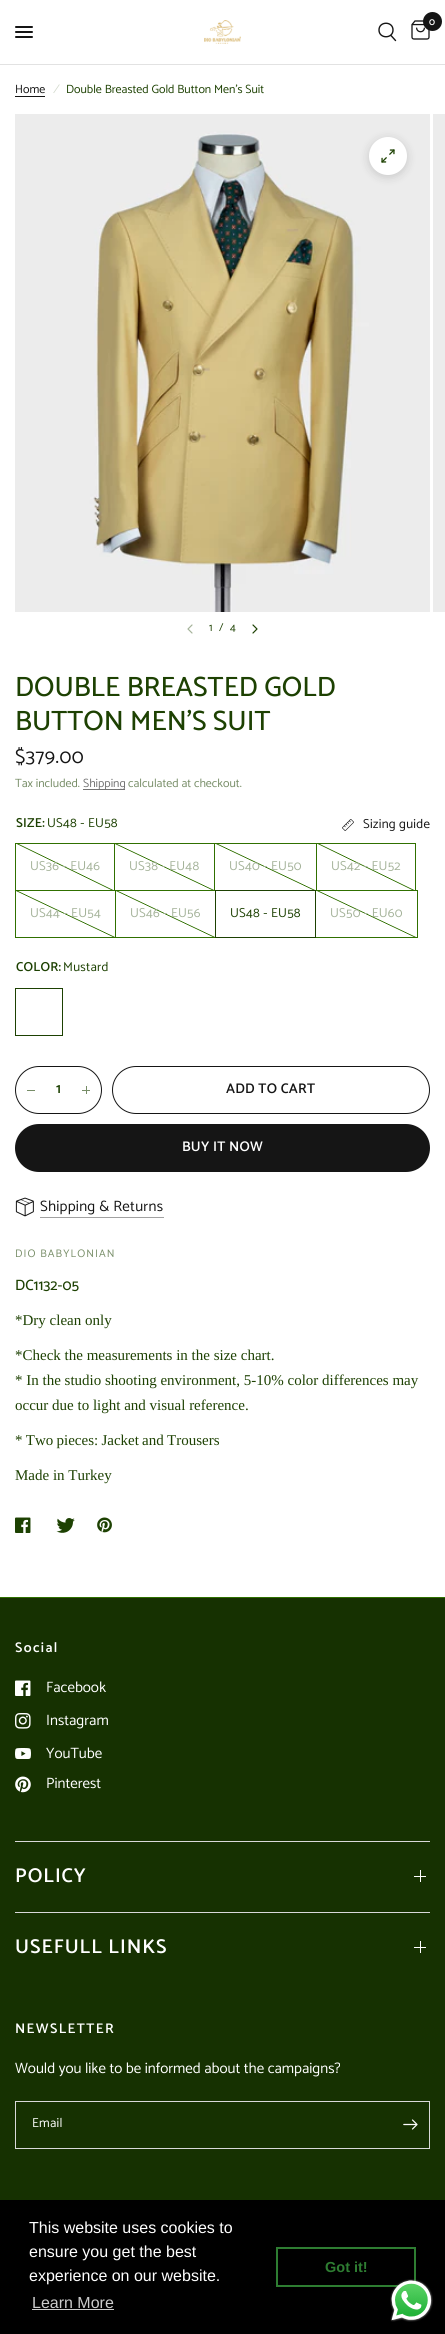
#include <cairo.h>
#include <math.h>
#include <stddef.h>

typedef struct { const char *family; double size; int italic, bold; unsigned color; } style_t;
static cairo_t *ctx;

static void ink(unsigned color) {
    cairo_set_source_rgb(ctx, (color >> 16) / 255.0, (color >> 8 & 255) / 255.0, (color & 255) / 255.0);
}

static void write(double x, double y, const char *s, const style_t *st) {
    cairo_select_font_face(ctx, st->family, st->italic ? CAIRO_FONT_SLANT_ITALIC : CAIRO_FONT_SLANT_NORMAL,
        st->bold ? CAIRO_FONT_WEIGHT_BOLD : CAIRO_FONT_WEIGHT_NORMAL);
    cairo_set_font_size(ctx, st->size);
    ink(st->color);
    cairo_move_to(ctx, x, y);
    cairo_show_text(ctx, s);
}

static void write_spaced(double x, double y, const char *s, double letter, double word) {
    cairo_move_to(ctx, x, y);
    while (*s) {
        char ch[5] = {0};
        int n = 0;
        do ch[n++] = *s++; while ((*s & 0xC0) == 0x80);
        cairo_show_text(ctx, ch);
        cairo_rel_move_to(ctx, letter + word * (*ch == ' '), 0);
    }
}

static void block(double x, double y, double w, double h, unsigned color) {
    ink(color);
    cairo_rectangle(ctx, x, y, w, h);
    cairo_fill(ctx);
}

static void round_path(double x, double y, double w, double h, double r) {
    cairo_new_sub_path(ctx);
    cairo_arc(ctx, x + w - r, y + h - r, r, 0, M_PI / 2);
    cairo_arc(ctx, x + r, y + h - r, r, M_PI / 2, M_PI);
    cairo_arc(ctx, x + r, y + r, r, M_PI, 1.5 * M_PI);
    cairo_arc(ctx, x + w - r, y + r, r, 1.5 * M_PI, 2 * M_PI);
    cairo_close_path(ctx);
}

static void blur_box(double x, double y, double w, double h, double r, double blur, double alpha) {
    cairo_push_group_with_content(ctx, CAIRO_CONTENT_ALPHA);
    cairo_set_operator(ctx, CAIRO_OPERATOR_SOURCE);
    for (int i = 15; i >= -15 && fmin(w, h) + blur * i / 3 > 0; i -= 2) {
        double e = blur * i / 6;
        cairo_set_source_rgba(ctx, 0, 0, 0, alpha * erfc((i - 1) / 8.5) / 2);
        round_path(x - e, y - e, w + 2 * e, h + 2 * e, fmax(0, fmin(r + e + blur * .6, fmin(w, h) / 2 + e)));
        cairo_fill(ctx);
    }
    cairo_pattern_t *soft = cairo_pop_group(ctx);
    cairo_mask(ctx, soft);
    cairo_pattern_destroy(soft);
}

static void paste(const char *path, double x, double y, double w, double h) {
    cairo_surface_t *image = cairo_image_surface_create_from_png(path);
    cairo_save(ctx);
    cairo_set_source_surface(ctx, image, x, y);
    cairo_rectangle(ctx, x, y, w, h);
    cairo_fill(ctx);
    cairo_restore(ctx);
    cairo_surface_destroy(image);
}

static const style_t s1 = {"Catamaran SemiBold", 10, 0, 0, 0xffffff};
static const style_t s2 = {"Catamaran", 12, 0, 0, 0x151515};
static const style_t s3 = {"Catamaran", 12, 1, 0, 0xd2d9cc};
static const style_t s4 = {"Catamaran", 12, 0, 0, 0x1d4102};
static const style_t s5 = {"Catamaran", 11, 0, 0, 0x1d4102};
static const style_t s6 = {"Catamaran Medium", 28, 0, 0, 0x1d4102};
static const style_t s7 = {"Catamaran", 12, 0, 0, 0x778d67};
static const style_t s8 = {"Catamaran", 12, 0, 0, 0x737373};
static const style_t s9 = {"Catamaran SemiBold", 14, 0, 0, 0x1d4102};
static const style_t s10 = {"Catamaran Medium", 15, 0, 0, 0x1d4102};
static const style_t s11 = {"Liberation Serif", 15, 0, 0, 0x1d4102};
static const style_t s12 = {"Catamaran", 15, 0, 0, 0xffffff};
static const style_t s13 = {"Liberation Sans", 16, 0, 0, 0xffffff};
static const style_t s14 = {"Liberation Sans", 16, 0, 0, 0xcccccc};
static const style_t s15 = {"Liberation Sans", 14.5, 0, 1, 0x2e7d32};

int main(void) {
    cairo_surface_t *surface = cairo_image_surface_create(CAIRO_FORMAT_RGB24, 445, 2334);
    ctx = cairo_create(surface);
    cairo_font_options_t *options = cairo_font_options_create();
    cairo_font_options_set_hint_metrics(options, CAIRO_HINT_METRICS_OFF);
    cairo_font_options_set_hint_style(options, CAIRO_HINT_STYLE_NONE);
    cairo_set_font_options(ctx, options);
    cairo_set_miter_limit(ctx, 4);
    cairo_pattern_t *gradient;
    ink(0xffffff);
    cairo_paint(ctx);
    block(0, 64, 445, 1, 0xe2e2e2);
    ink(0x151515);
    round_path(15, 26, 18, 2, 1);
    cairo_fill(ctx);
    round_path(15, 31, 18, 2, 1);
    cairo_fill(ctx);
    round_path(15, 36, 18, 2, 1);
    cairo_fill(ctx);
    paste("pic1.png", 204, 20, 37, 24);
    cairo_new_path(ctx);
    cairo_move_to(ctx, 391, 35.5);
    cairo_line_to(ctx, 395.5, 40.5);
    cairo_move_to(ctx, 393, 30);
    cairo_curve_to(ctx, 393, 39, 379, 39, 379, 30);
    cairo_curve_to(ctx, 379, 21, 393, 21, 393, 30);
    cairo_close_path(ctx);
    cairo_set_line_width(ctx, 1.4);
    cairo_set_line_cap(ctx, CAIRO_LINE_CAP_ROUND);
    cairo_set_line_join(ctx, CAIRO_LINE_JOIN_ROUND);
    cairo_stroke(ctx);
    paste("pic2.png", 411, 20, 19, 20);
    cairo_arc(ctx, 432.5, 21.5, 9.5, 0, 2 * M_PI);
    cairo_fill(ctx);
    write(429, 25, "0", &s1);
    write(15, 93, "Home", &s2);
    block(15, 96, 30, 1, 0x151515);
    write(53, 93, "/", &s3);
    write(66, 93, "Double Breasted Gold Button Men’s Suit", &s4);
    paste("pic3.png", 15, 114, 415, 498);
    ink(0x000000);
    blur_box(369, 139, 38, 38, 19, 5, 0.15);
    ink(0xffffff);
    cairo_arc(ctx, 388, 156, 19, 0, 2 * M_PI);
    cairo_fill(ctx);
    paste("pic4.png", 381, 149, 14, 14);
    block(433, 114, 12, 498, 0xececec);
    cairo_new_path(ctx);
    cairo_move_to(ctx, 192, 625);
    cairo_line_to(ctx, 188, 629);
    cairo_line_to(ctx, 192, 633);
    ink(0xa5b39a);
    cairo_set_line_width(ctx, 1.2);
    cairo_stroke(ctx);
    write(209, 631, "1", &s5);
    write(219, 631, "/", &s5);
    write(230, 631, "4", &s5);
    cairo_new_path(ctx);
    cairo_move_to(ctx, 253, 625);
    cairo_line_to(ctx, 257, 629);
    cairo_line_to(ctx, 253, 633);
    cairo_stroke(ctx);
    write(15, 696, "DOUBLE BREASTED GOLD", &s6);
    write(15, 730, "BUTTON MEN’S SUIT", &s6);
    cairo_select_font_face(ctx, "Catamaran", CAIRO_FONT_SLANT_NORMAL, CAIRO_FONT_WEIGHT_NORMAL);
    cairo_set_font_size(ctx, 20);
    ink(0x151515);
    write_spaced(15, 763, "$379.00", 0.5, 0);
    write(15, 787, "Tax included.", &s7);
    block(83, 789, 42, 1, 0x737373);
    write(83, 787, "Shipping", &s8);
    write(128, 787, "calculated at checkout.", &s7);
    cairo_select_font_face(ctx, "Catamaran SemiBold", CAIRO_FONT_SLANT_NORMAL, CAIRO_FONT_WEIGHT_NORMAL);
    cairo_set_font_size(ctx, 13);
    ink(0x1d4102);
    write_spaced(16, 827, "SIZE:", 0.25, 0);
    cairo_select_font_face(ctx, "Catamaran", CAIRO_FONT_SLANT_NORMAL, CAIRO_FONT_WEIGHT_NORMAL);
    write_spaced(47, 827, "US48 - EU58", 0.25, 0);
    paste("pic5.png", 342, 819, 12, 12);
    ink(0x151515);
    write_spaced(363, 828, "Sizing guide", 0.25, 0);
    cairo_rectangle(ctx, 15.5, 843.5, 99, 47);
    ink(0x307000);
    cairo_set_line_width(ctx, 1);
    cairo_set_line_cap(ctx, CAIRO_LINE_CAP_BUTT);
    cairo_set_line_join(ctx, CAIRO_LINE_JOIN_MITER);
    cairo_stroke(ctx);
    gradient = cairo_pattern_create_linear(84, 828, 46, 906);
    cairo_pattern_add_color_stop_rgba(gradient, 0.49, 0.188, 0.439, 0, 0);
    cairo_pattern_add_color_stop_rgba(gradient, 0.5, 0.188, 0.439, 0, 1);
    cairo_pattern_add_color_stop_rgba(gradient, 0.51, 0.188, 0.439, 0, 0);
    cairo_set_source(ctx, gradient);
    cairo_pattern_destroy(gradient);
    cairo_rectangle(ctx, 17, 844, 96, 46);
    cairo_fill(ctx);
    ink(0xa5b39a);
    write_spaced(30, 870, "US36 - EU46", 0.25, 0);
    cairo_rectangle(ctx, 114.5, 843.5, 100, 47);
    ink(0x307000);
    cairo_stroke(ctx);
    gradient = cairo_pattern_create_linear(183, 828, 146, 906);
    cairo_pattern_add_color_stop_rgba(gradient, 0.49, 0.188, 0.439, 0, 0);
    cairo_pattern_add_color_stop_rgba(gradient, 0.5, 0.188, 0.439, 0, 1);
    cairo_pattern_add_color_stop_rgba(gradient, 0.51, 0.188, 0.439, 0, 0);
    cairo_set_source(ctx, gradient);
    cairo_pattern_destroy(gradient);
    cairo_rectangle(ctx, 115, 844, 99, 46);
    cairo_fill(ctx);
    ink(0xa5b39a);
    write_spaced(129, 870, "US38 - EU48", 0.25, 0);
    cairo_rectangle(ctx, 214.5, 843.5, 102, 47);
    ink(0x307000);
    cairo_stroke(ctx);
    gradient = cairo_pattern_create_linear(284, 828, 247, 906);
    cairo_pattern_add_color_stop_rgba(gradient, 0.49, 0.188, 0.439, 0, 0);
    cairo_pattern_add_color_stop_rgba(gradient, 0.5, 0.188, 0.439, 0, 1);
    cairo_pattern_add_color_stop_rgba(gradient, 0.51, 0.188, 0.439, 0, 0);
    cairo_set_source(ctx, gradient);
    cairo_pattern_destroy(gradient);
    cairo_rectangle(ctx, 216, 844, 99, 46);
    cairo_fill(ctx);
    ink(0xa5b39a);
    write_spaced(229, 870, "US40 - EU50", 0.25, 0);
    cairo_rectangle(ctx, 316.5, 843.5, 99, 47);
    ink(0x307000);
    cairo_stroke(ctx);
    gradient = cairo_pattern_create_linear(385, 828, 347, 906);
    cairo_pattern_add_color_stop_rgba(gradient, 0.49, 0.188, 0.439, 0, 0);
    cairo_pattern_add_color_stop_rgba(gradient, 0.5, 0.188, 0.439, 0, 1);
    cairo_pattern_add_color_stop_rgba(gradient, 0.51, 0.188, 0.439, 0, 0);
    cairo_set_source(ctx, gradient);
    cairo_pattern_destroy(gradient);
    cairo_rectangle(ctx, 318, 844, 96, 46);
    cairo_fill(ctx);
    ink(0xa5b39a);
    write_spaced(331, 870, "US42 - EU52", 0.25, 0);
    cairo_rectangle(ctx, 15.5, 890.5, 100, 47);
    ink(0x307000);
    cairo_stroke(ctx);
    gradient = cairo_pattern_create_linear(84, 875, 47, 953);
    cairo_pattern_add_color_stop_rgba(gradient, 0.49, 0.188, 0.439, 0, 0);
    cairo_pattern_add_color_stop_rgba(gradient, 0.5, 0.188, 0.439, 0, 1);
    cairo_pattern_add_color_stop_rgba(gradient, 0.51, 0.188, 0.439, 0, 0);
    cairo_set_source(ctx, gradient);
    cairo_pattern_destroy(gradient);
    cairo_rectangle(ctx, 16, 891, 99, 46);
    cairo_fill(ctx);
    ink(0xa5b39a);
    write_spaced(30, 917, "US44 - EU54", 0.25, 0);
    cairo_rectangle(ctx, 115.5, 890.5, 100, 47);
    ink(0x307000);
    cairo_stroke(ctx);
    gradient = cairo_pattern_create_linear(184, 875, 147, 953);
    cairo_pattern_add_color_stop_rgba(gradient, 0.49, 0.188, 0.439, 0, 0);
    cairo_pattern_add_color_stop_rgba(gradient, 0.5, 0.188, 0.439, 0, 1);
    cairo_pattern_add_color_stop_rgba(gradient, 0.51, 0.188, 0.439, 0, 0);
    cairo_set_source(ctx, gradient);
    cairo_pattern_destroy(gradient);
    cairo_rectangle(ctx, 116, 891, 99, 46);
    cairo_fill(ctx);
    ink(0xa5b39a);
    write_spaced(130, 917, "US46 - EU56", 0.25, 0);
    cairo_rectangle(ctx, 315.5, 890.5, 102, 47);
    ink(0x307000);
    cairo_stroke(ctx);
    cairo_rectangle(ctx, 215.5, 890.5, 100, 47);
    ink(0x1d4102);
    cairo_stroke(ctx);
    write_spaced(230, 917, "US48 - EU58", 0.25, 0);
    gradient = cairo_pattern_create_linear(385, 875, 348, 953);
    cairo_pattern_add_color_stop_rgba(gradient, 0.49, 0.188, 0.439, 0, 0);
    cairo_pattern_add_color_stop_rgba(gradient, 0.5, 0.188, 0.439, 0, 1);
    cairo_pattern_add_color_stop_rgba(gradient, 0.51, 0.188, 0.439, 0, 0);
    cairo_set_source(ctx, gradient);
    cairo_pattern_destroy(gradient);
    cairo_rectangle(ctx, 317, 891, 99, 46);
    cairo_fill(ctx);
    ink(0xa5b39a);
    write_spaced(330, 917, "US50 - EU60", 0.25, 0);
    cairo_select_font_face(ctx, "Catamaran SemiBold", CAIRO_FONT_SLANT_NORMAL, CAIRO_FONT_WEIGHT_NORMAL);
    ink(0x1d4102);
    write_spaced(16, 971, "COLOR:", 0.25, 0);
    cairo_select_font_face(ctx, "Catamaran", CAIRO_FONT_SLANT_NORMAL, CAIRO_FONT_WEIGHT_NORMAL);
    write_spaced(63, 971, "Mustard", 0.25, 0);
    cairo_rectangle(ctx, 15.5, 988.5, 47, 47);
    cairo_stroke(ctx);
    round_path(15.5, 1066.5, 86, 47, 23.5);
    ink(0x151515);
    cairo_stroke(ctx);
    block(27, 1090, 8, 1, 0x778d67);
    write(56, 1093, "1", &s9);
    block(86, 1086, 1, 8, 0x778d67);
    block(82, 1090, 8, 1, 0x778d67);
    round_path(112.5, 1066.5, 317, 47, 23.5);
    ink(0x151515);
    cairo_stroke(ctx);
    write_spaced(226, 1093, "ADD TO CART", 0.25, 0);
    round_path(15, 1124, 415, 48, 24);
    cairo_fill(ctx);
    ink(0xffffff);
    write_spaced(182, 1151, "BUY IT NOW", 0.25, 0);
    paste("pic6.png", 15, 1197, 19, 20);
    cairo_select_font_face(ctx, "Catamaran", CAIRO_FONT_SLANT_NORMAL, CAIRO_FONT_WEIGHT_NORMAL);
    cairo_set_font_size(ctx, 15);
    ink(0x151515);
    write_spaced(40, 1211, "Shipping & Returns", 0.25, 0);
    block(40, 1217, 124, 1, 0xa1a1a1);
    cairo_set_font_size(ctx, 11);
    ink(0x778d67);
    write_spaced(15, 1257, "DIO BABYLONIAN", 1.1, 0);
    write(15, 1290, "DC1132-05", &s10);
    write(15, 1325, "*Dry clean only", &s11);
    write(15, 1360, "*Check the measurements in the size chart.", &s11);
    write(15, 1385, "* In the studio shooting environment, 5-10% color differences may", &s11);
    write(15, 1410, "occur due to light and visual reference.", &s11);
    write_spaced(15, 1445, "* Two pieces: Jacket and Trousers", 0, -0.5);
    write(15, 1480, "Made in Turkey", &s11);
    paste("pic7.png", 15, 1517, 16, 16);
    paste("pic8.png", 56, 1518, 19, 15);
    paste("pic9.png", 97, 1517, 15, 16);
    block(0, 1597, 445, 1, 0x307000);
    block(0, 1598, 445, 602, 0x163101);
    cairo_select_font_face(ctx, "Catamaran SemiBold", CAIRO_FONT_SLANT_NORMAL, CAIRO_FONT_WEIGHT_NORMAL);
    cairo_set_font_size(ctx, 14);
    ink(0xffffff);
    write_spaced(15, 1652, "Social", 1.4, 0);
    paste("pic10.png", 15, 1680, 16, 16);
    write(46, 1692, "Facebook", &s12);
    paste("pic11.png", 15, 1713, 16, 16);
    write(46, 1725, "Instagram", &s12);
    paste("pic12.png", 15, 1748, 16, 11);
    write(46, 1758, "YouTube", &s12);
    paste("pic13.png", 15, 1776, 16, 17);
    write(46, 1788, "Pinterest", &s12);
    block(15, 1841, 415, 1, 0xd9d9d9);
    cairo_select_font_face(ctx, "Catamaran SemiBold", CAIRO_FONT_SLANT_NORMAL, CAIRO_FONT_WEIGHT_NORMAL);
    cairo_set_font_size(ctx, 20);
    ink(0xffffff);
    write_spaced(15, 1882, "POLICY", 1, 0);
    block(420, 1870, 1, 12, 0xffffff);
    block(414, 1876, 12, 1, 0xffffff);
    block(15, 1912, 415, 1, 0xd9d9d9);
    ink(0xffffff);
    write_spaced(15, 1953, "USEFULL LINKS", 1, 0);
    block(420, 1941, 1, 12, 0xffffff);
    block(414, 1947, 12, 1, 0xffffff);
    cairo_set_font_size(ctx, 14);
    write_spaced(15, 2033, "NEWSLETTER", 1.4, 0);
    write(15, 2073, "Would you like to be informed about the campaigns?", &s12);
    cairo_rectangle(ctx, 15.5, 2101.5, 414, 47);
    ink(0xd9d9d9);
    cairo_stroke(ctx);
    cairo_set_font_size(ctx, 13);
    ink(0xffffff);
    write_spaced(32, 2127, "Email", 0.25, 0);
    paste("pic14.png", 403, 2119, 15, 11);
    block(0, 2200, 445, 134, 0x000000);
    write(29, 2233, "This website uses cookies to", &s13);
    write(29, 2257, "ensure you get the best", &s13);
    write(29, 2281, "experience on our website.", &s13);
    write(32, 2308, "Learn More", &s14);
    block(32, 2309, 82, 1, 0xcccccc);
    cairo_rectangle(ctx, 277, 2248, 138, 38);
    ink(0x2e7d32);
    cairo_set_line_width(ctx, 2);
    cairo_stroke(ctx);
    write(325, 2272, "Got it!", &s15);
    paste("pic15.png", 390, 2279, 43, 43);
    cairo_surface_write_to_png(surface, "screenshot.png");
    cairo_font_options_destroy(options);
    cairo_destroy(ctx);
    cairo_surface_destroy(surface);
    return 0;
}
